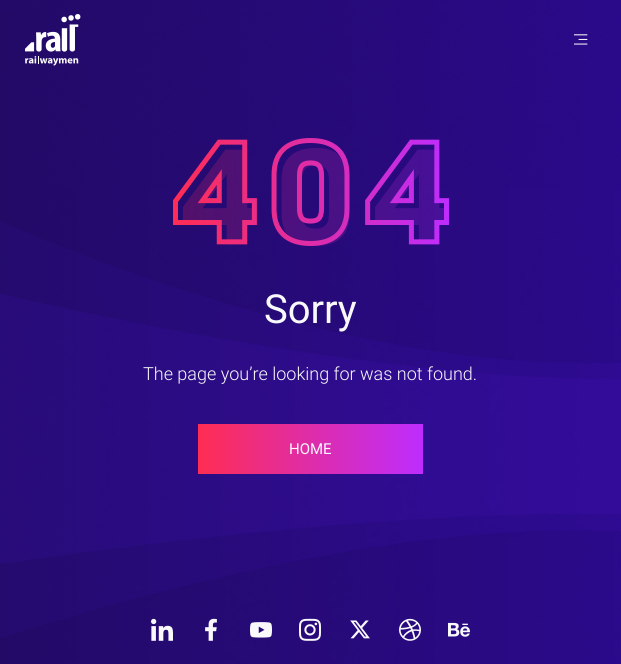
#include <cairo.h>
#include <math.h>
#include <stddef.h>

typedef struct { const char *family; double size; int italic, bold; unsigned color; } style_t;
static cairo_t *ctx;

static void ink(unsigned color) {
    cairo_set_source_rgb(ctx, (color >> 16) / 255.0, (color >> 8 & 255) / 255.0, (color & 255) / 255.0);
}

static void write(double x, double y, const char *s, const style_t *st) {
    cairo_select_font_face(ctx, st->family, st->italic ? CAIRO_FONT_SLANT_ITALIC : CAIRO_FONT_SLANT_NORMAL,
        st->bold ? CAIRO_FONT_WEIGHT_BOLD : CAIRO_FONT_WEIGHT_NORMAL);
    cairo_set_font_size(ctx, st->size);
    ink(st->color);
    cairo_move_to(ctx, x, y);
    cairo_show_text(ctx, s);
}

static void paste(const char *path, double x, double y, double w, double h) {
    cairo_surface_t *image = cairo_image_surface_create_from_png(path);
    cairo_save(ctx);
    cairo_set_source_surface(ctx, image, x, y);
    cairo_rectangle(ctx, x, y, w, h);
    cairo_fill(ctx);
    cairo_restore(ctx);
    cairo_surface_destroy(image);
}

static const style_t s1 = {"Roboto", 40, 0, 0, 0xf9f9fc};
static const style_t s2 = {"Roboto Light", 18, 0, 0, 0xf9f9fc};
static const style_t s3 = {"Roboto", 15, 0, 0, 0xf9f9fc};

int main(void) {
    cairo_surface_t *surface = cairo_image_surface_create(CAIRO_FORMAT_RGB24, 621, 664);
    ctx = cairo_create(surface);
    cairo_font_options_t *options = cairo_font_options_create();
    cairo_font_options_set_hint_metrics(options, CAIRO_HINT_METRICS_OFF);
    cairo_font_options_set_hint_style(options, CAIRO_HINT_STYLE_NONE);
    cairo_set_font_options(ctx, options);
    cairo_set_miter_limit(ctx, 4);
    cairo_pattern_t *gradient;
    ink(0xffffff);
    cairo_paint(ctx);
    paste("pic3.png", 0, 0, 621, 664);
    paste("pic1.png", 25, 14, 56, 52);
    paste("pic2.png", 574, 34, 14, 11);
    paste("pic4.png", 173, 138, 276, 108);
    write(264, 323, "Sorry", &s1);
    write(143, 380, "The page you’re looking for was not found.", &s2);
    gradient = cairo_pattern_create_linear(198, 449, 423, 449);
    cairo_pattern_add_color_stop_rgba(gradient, 0, 1, 0.176, 0.325, 1);
    cairo_pattern_add_color_stop_rgba(gradient, 1, 0.745, 0.176, 1, 1);
    cairo_set_source(ctx, gradient);
    cairo_pattern_destroy(gradient);
    cairo_rectangle(ctx, 198, 424, 225, 50);
    cairo_fill(ctx);
    write(289, 454, "HOME", &s3);
    paste("pic5.png", 151, 618, 22, 23);
    paste("pic6.png", 205, 618, 12, 23);
    paste("pic7.png", 250, 622, 22, 16);
    paste("pic8.png", 299, 618, 22, 23);
    paste("pic9.png", 350, 620, 20, 19);
    paste("pic10.png", 399, 618, 22, 23);
    paste("pic11.png", 448, 622, 22, 15);
    cairo_surface_write_to_png(surface, "screenshot.png");
    cairo_font_options_destroy(options);
    cairo_destroy(ctx);
    cairo_surface_destroy(surface);
    return 0;
}
